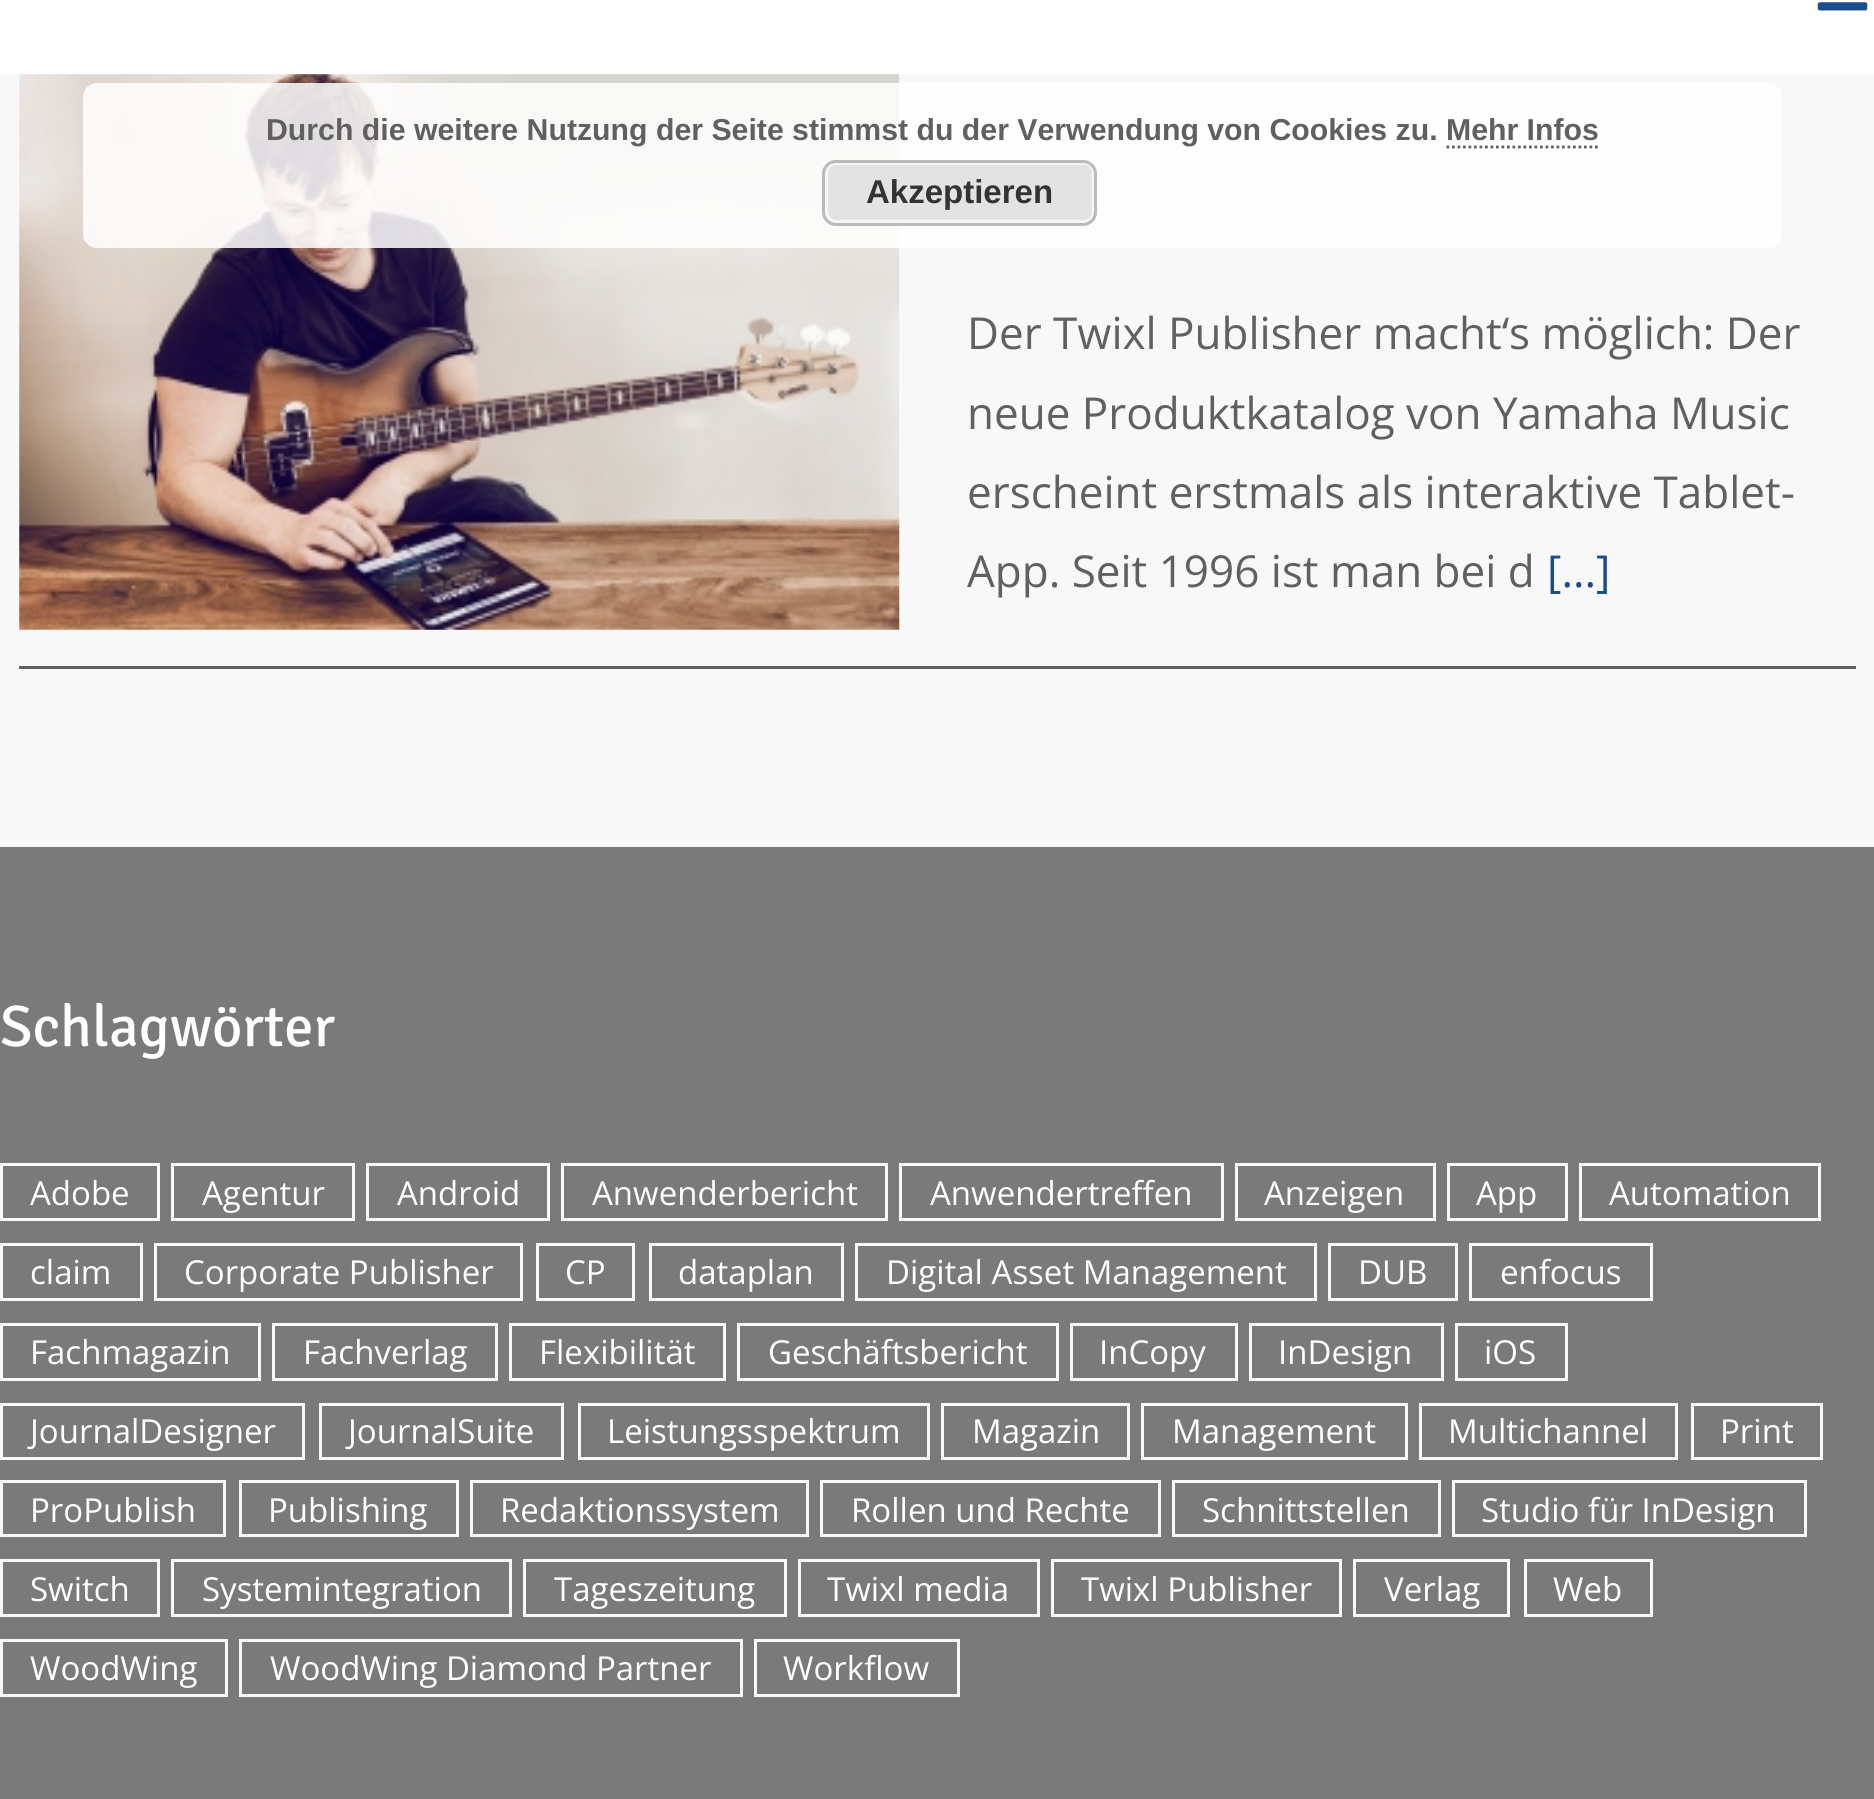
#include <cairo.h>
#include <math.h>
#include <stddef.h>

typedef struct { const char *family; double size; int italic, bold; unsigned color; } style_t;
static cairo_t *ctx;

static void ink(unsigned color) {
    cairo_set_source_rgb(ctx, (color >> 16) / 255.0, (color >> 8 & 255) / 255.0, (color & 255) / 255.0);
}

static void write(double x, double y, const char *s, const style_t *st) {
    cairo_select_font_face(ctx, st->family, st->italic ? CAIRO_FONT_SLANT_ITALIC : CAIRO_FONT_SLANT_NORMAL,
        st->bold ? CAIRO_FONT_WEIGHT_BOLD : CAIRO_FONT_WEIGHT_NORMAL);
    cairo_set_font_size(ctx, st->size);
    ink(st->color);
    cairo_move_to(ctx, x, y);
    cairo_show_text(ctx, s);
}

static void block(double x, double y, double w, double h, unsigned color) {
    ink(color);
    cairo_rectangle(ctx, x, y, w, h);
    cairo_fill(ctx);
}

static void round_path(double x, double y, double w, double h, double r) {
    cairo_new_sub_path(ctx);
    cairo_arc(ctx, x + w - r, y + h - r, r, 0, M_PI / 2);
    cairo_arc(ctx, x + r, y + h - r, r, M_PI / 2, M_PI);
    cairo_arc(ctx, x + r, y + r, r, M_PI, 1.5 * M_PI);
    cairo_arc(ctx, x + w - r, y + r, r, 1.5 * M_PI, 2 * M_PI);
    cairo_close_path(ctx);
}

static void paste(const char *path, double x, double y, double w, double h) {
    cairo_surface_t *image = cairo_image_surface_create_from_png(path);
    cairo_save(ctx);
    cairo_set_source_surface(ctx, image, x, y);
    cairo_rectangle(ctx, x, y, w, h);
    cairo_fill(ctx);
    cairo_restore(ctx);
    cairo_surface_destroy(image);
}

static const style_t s1 = {"Liberation Sans", 30.25, 0, 1, 0x606060};
static const style_t s2 = {"Liberation Sans", 33, 0, 1, 0x333333};
static const style_t s3 = {"Open Sans", 44, 0, 0, 0x606060};
static const style_t s4 = {"Open Sans", 44, 0, 0, 0x1b4c8e};
static const style_t s5 = {"Signika Light", 58.5, 0, 0, 0xffffff};
static const style_t s6 = {"Open Sans", 33, 0, 0, 0xffffff};

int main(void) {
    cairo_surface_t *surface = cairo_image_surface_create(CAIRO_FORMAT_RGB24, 1874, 1799);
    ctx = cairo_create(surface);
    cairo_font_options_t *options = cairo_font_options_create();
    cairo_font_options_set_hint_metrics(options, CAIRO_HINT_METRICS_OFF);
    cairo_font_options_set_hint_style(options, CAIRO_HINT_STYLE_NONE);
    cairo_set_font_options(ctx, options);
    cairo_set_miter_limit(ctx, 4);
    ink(0xf8f8f8);
    cairo_paint(ctx);
    paste("pic2.png", 19, 74, 881, 556);
    cairo_set_source_rgba(ctx, 1, 1, 1, 0.85);
    round_path(83, 83, 1699, 165, 14);
    cairo_fill(ctx);
    write(266, 140, "Durch die weitere Nutzung der Seite stimmst du der Verwendung von Cookies zu. Mehr Infos", &s1);
    cairo_new_path(ctx);
    cairo_move_to(ctx, 1446.5, 147);
    cairo_line_to(ctx, 1598, 147);
    cairo_set_line_width(ctx, 2.8);
    cairo_set_dash(ctx, (double[]){2.75, 2.75}, 2, 0);
    cairo_stroke(ctx);
    ink(0xe3e3e3);
    round_path(822, 160, 275, 66, 14);
    cairo_fill(ctx);
    round_path(826.5, 163.5, 267, 58, 9.5);
    ink(0xf6f6f6);
    cairo_set_line_width(ctx, 3);
    cairo_set_dash(ctx, NULL, 0, 0);
    cairo_stroke(ctx);
    round_path(823.5, 161.5, 272, 63, 12.5);
    ink(0xbbbbbb);
    cairo_stroke(ctx);
    write(866, 203, "Akzeptieren", &s2);
    block(0, 0, 1874, 74, 0xffffff);
    paste("pic1.png", 1817, 2, 51, 9);
    block(19, 666, 1837, 3, 0x606060);
    write(967, 349, "Der Twixl Publisher macht‘s möglich: Der", &s3);
    write(967, 429, "neue Produktkatalog von Yamaha Music", &s3);
    write(967, 508, "erscheint erstmals als interaktive Tablet-", &s3);
    write(967, 587, "App. Seit 1996 ist man bei d", &s3);
    write(1547, 587, "[...]", &s4);
    block(0, 847, 1874, 952, 0x7a7a7a);
    write(0, 1046, "Schlagwörter", &s5);
    cairo_rectangle(ctx, 1.5, 1164.5, 157, 55);
    ink(0xf8f8f8);
    cairo_stroke(ctx);
    write(30, 1205, "Adobe", &s6);
    cairo_rectangle(ctx, 172.5, 1164.5, 181, 55);
    ink(0xf8f8f8);
    cairo_stroke(ctx);
    write(202, 1205, "Agentur", &s6);
    cairo_rectangle(ctx, 367.5, 1164.5, 181, 55);
    ink(0xf8f8f8);
    cairo_stroke(ctx);
    write(397, 1205, "Android", &s6);
    cairo_rectangle(ctx, 562.5, 1164.5, 324, 55);
    ink(0xf8f8f8);
    cairo_stroke(ctx);
    write(592, 1205, "Anwenderbericht", &s6);
    cairo_rectangle(ctx, 900.5, 1164.5, 322, 55);
    ink(0xf8f8f8);
    cairo_stroke(ctx);
    write(930, 1205, "Anwendertreffen", &s6);
    cairo_rectangle(ctx, 1236.5, 1164.5, 198, 55);
    ink(0xf8f8f8);
    cairo_stroke(ctx);
    write(1264, 1205, "Anzeigen", &s6);
    cairo_rectangle(ctx, 1448.5, 1164.5, 118, 55);
    ink(0xf8f8f8);
    cairo_stroke(ctx);
    write(1476, 1205, "App", &s6);
    cairo_rectangle(ctx, 1580.5, 1164.5, 239, 55);
    ink(0xf8f8f8);
    cairo_stroke(ctx);
    write(1609, 1205, "Automation", &s6);
    cairo_rectangle(ctx, 1.5, 1244.5, 140, 55);
    ink(0xf8f8f8);
    cairo_stroke(ctx);
    write(30, 1284, "claim", &s6);
    cairo_rectangle(ctx, 155.5, 1244.5, 366, 55);
    ink(0xf8f8f8);
    cairo_stroke(ctx);
    write(184, 1284, "Corporate Publisher", &s6);
    cairo_rectangle(ctx, 537.5, 1244.5, 96, 55);
    ink(0xf8f8f8);
    cairo_stroke(ctx);
    write(565, 1284, "CP", &s6);
    cairo_rectangle(ctx, 650.5, 1244.5, 192, 55);
    ink(0xf8f8f8);
    cairo_stroke(ctx);
    write(678, 1284, "dataplan", &s6);
    cairo_rectangle(ctx, 856.5, 1244.5, 459, 55);
    ink(0xf8f8f8);
    cairo_stroke(ctx);
    write(886, 1284, "Digital Asset Management", &s6);
    cairo_rectangle(ctx, 1329.5, 1244.5, 127, 55);
    ink(0xf8f8f8);
    cairo_stroke(ctx);
    write(1358, 1284, "DUB", &s6);
    cairo_rectangle(ctx, 1470.5, 1244.5, 181, 55);
    ink(0xf8f8f8);
    cairo_stroke(ctx);
    write(1500, 1284, "enfocus", &s6);
    cairo_rectangle(ctx, 1.5, 1324.5, 258, 55);
    ink(0xf8f8f8);
    cairo_stroke(ctx);
    write(30, 1364, "Fachmagazin", &s6);
    cairo_rectangle(ctx, 273.5, 1324.5, 223, 55);
    ink(0xf8f8f8);
    cairo_stroke(ctx);
    write(303, 1364, "Fachverlag", &s6);
    cairo_rectangle(ctx, 510.5, 1324.5, 214, 55);
    ink(0xf8f8f8);
    cairo_stroke(ctx);
    write(539, 1364, "Flexibilität", &s6);
    cairo_rectangle(ctx, 738.5, 1324.5, 319, 55);
    ink(0xf8f8f8);
    cairo_stroke(ctx);
    write(768, 1364, "Geschäftsbericht", &s6);
    cairo_rectangle(ctx, 1071.5, 1324.5, 165, 55);
    ink(0xf8f8f8);
    cairo_stroke(ctx);
    write(1099, 1364, "InCopy", &s6);
    cairo_rectangle(ctx, 1250.5, 1324.5, 192, 55);
    ink(0xf8f8f8);
    cairo_stroke(ctx);
    write(1278, 1364, "InDesign", &s6);
    cairo_rectangle(ctx, 1456.5, 1324.5, 110, 55);
    ink(0xf8f8f8);
    cairo_stroke(ctx);
    write(1484, 1364, "iOS", &s6);
    cairo_rectangle(ctx, 1.5, 1404.5, 302, 54);
    ink(0xf8f8f8);
    cairo_stroke(ctx);
    write(30, 1443, "JournalDesigner", &s6);
    cairo_rectangle(ctx, 320.5, 1404.5, 242, 54);
    ink(0xf8f8f8);
    cairo_stroke(ctx);
    write(348, 1443, "JournalSuite", &s6);
    cairo_rectangle(ctx, 579.5, 1404.5, 349, 54);
    ink(0xf8f8f8);
    cairo_stroke(ctx);
    write(607, 1443, "Leistungsspektrum", &s6);
    cairo_rectangle(ctx, 942.5, 1404.5, 186, 54);
    ink(0xf8f8f8);
    cairo_stroke(ctx);
    write(972, 1443, "Magazin", &s6);
    cairo_rectangle(ctx, 1142.5, 1404.5, 264, 54);
    ink(0xf8f8f8);
    cairo_stroke(ctx);
    write(1172, 1443, "Management", &s6);
    cairo_rectangle(ctx, 1420.5, 1404.5, 256, 54);
    ink(0xf8f8f8);
    cairo_stroke(ctx);
    write(1448, 1443, "Multichannel", &s6);
    cairo_rectangle(ctx, 1692.5, 1404.5, 129, 54);
    ink(0xf8f8f8);
    cairo_stroke(ctx);
    write(1720, 1443, "Print", &s6);
    cairo_rectangle(ctx, 1.5, 1481.5, 223, 54);
    ink(0xf8f8f8);
    cairo_stroke(ctx);
    write(30, 1522, "ProPublish", &s6);
    cairo_rectangle(ctx, 240.5, 1481.5, 217, 54);
    ink(0xf8f8f8);
    cairo_stroke(ctx);
    write(268, 1522, "Publishing", &s6);
    cairo_rectangle(ctx, 471.5, 1481.5, 336, 54);
    ink(0xf8f8f8);
    cairo_stroke(ctx);
    write(500, 1522, "Redaktionssystem", &s6);
    cairo_rectangle(ctx, 821.5, 1481.5, 338, 54);
    ink(0xf8f8f8);
    cairo_stroke(ctx);
    write(851, 1522, "Rollen und Rechte", &s6);
    cairo_rectangle(ctx, 1173.5, 1481.5, 266, 54);
    ink(0xf8f8f8);
    cairo_stroke(ctx);
    write(1202, 1522, "Schnittstellen", &s6);
    cairo_rectangle(ctx, 1453.5, 1481.5, 352, 54);
    ink(0xf8f8f8);
    cairo_stroke(ctx);
    write(1481, 1522, "Studio für InDesign", &s6);
    cairo_rectangle(ctx, 1.5, 1560.5, 157, 55);
    ink(0xf8f8f8);
    cairo_stroke(ctx);
    write(30, 1601, "Switch", &s6);
    cairo_rectangle(ctx, 172.5, 1560.5, 338, 55);
    ink(0xf8f8f8);
    cairo_stroke(ctx);
    write(202, 1601, "Systemintegration", &s6);
    cairo_rectangle(ctx, 524.5, 1560.5, 261, 55);
    ink(0xf8f8f8);
    cairo_stroke(ctx);
    write(554, 1601, "Tageszeitung", &s6);
    cairo_rectangle(ctx, 799.5, 1560.5, 239, 55);
    ink(0xf8f8f8);
    cairo_stroke(ctx);
    write(827, 1601, "Twixl media", &s6);
    cairo_rectangle(ctx, 1052.5, 1560.5, 288, 55);
    ink(0xf8f8f8);
    cairo_stroke(ctx);
    write(1081, 1601, "Twixl Publisher", &s6);
    cairo_rectangle(ctx, 1354.5, 1560.5, 154, 55);
    ink(0xf8f8f8);
    cairo_stroke(ctx);
    write(1384, 1601, "Verlag", &s6);
    cairo_rectangle(ctx, 1525.5, 1560.5, 126, 55);
    ink(0xf8f8f8);
    cairo_stroke(ctx);
    write(1553, 1601, "Web", &s6);
    cairo_rectangle(ctx, 1.5, 1640.5, 225, 55);
    ink(0xf8f8f8);
    cairo_stroke(ctx);
    write(30, 1680, "WoodWing", &s6);
    cairo_rectangle(ctx, 240.5, 1640.5, 501, 55);
    ink(0xf8f8f8);
    cairo_stroke(ctx);
    write(270, 1680, "WoodWing Diamond Partner", &s6);
    cairo_rectangle(ctx, 755.5, 1640.5, 203, 55);
    ink(0xf8f8f8);
    cairo_stroke(ctx);
    write(783, 1680, "Workflow", &s6);
    cairo_surface_write_to_png(surface, "screenshot.png");
    cairo_font_options_destroy(options);
    cairo_destroy(ctx);
    cairo_surface_destroy(surface);
    return 0;
}
